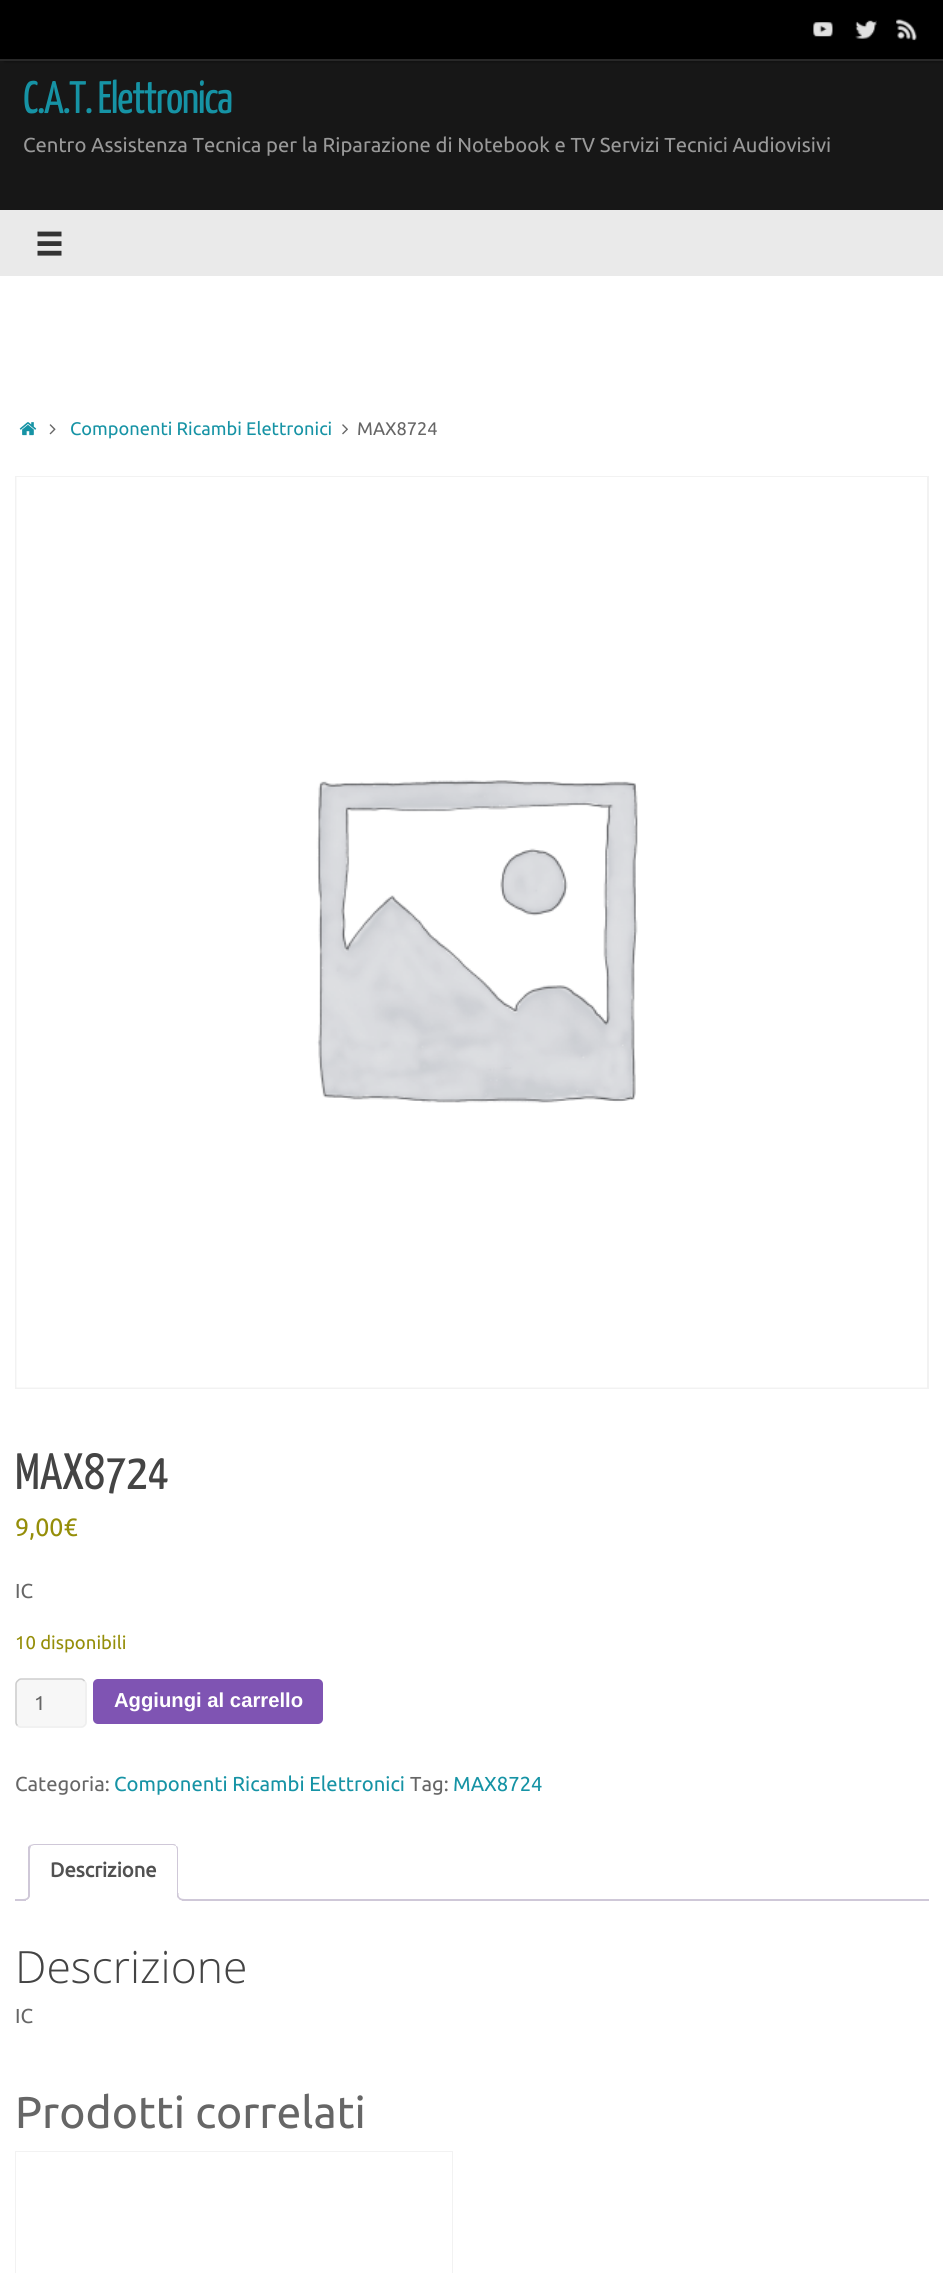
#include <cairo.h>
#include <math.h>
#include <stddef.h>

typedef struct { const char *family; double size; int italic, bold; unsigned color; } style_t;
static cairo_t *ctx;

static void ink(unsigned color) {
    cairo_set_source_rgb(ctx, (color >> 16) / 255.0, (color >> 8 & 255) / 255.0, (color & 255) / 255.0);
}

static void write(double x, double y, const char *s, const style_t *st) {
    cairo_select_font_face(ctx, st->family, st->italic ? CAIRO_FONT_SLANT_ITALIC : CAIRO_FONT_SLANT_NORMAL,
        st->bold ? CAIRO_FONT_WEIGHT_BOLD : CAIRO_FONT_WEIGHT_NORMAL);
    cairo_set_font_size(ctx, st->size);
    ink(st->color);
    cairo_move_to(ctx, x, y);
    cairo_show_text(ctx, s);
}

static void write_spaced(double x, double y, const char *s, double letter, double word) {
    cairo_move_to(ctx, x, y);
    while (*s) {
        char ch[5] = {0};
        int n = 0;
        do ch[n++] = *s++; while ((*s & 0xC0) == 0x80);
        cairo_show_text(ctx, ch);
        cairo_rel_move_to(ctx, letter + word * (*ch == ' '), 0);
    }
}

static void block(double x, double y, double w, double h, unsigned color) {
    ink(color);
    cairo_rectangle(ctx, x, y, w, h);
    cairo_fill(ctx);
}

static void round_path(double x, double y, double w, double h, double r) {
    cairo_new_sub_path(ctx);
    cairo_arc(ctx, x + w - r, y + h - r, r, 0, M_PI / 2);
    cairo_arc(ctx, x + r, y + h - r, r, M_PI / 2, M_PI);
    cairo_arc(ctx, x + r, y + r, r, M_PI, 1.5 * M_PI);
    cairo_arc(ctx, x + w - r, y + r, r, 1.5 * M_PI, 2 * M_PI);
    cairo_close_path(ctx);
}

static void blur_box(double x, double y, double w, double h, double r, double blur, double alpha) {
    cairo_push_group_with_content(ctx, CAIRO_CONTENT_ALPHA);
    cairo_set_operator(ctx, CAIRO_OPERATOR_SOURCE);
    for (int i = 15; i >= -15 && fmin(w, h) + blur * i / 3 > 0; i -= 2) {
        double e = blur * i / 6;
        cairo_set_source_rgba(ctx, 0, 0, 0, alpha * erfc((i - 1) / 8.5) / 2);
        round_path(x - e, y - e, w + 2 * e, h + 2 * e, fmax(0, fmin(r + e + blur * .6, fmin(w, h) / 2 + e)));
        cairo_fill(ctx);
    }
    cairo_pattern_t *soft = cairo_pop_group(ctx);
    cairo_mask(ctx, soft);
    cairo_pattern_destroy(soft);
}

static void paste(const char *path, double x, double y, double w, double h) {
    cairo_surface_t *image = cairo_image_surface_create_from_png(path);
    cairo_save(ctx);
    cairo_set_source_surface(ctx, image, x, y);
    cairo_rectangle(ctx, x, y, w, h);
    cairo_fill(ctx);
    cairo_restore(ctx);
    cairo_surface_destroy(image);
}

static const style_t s1 = {"Ubuntu", 20.25, 0, 0, 0x999999};
static const style_t s2 = {"Ubuntu", 18.25, 0, 0, 0x1693a5};
static const style_t s3 = {"Ubuntu", 18.25, 0, 0, 0x666666};
static const style_t s4 = {"Yanone Kaffeesatz", 51, 0, 0, 0x444444};
static const style_t s5 = {"Ubuntu", 25, 0, 0, 0x958e09};
static const style_t s6 = {"Ubuntu", 20.25, 0, 0, 0x666666};
static const style_t s7 = {"Ubuntu", 18.5, 0, 0, 0x958e09};
static const style_t s8 = {"Ubuntu", 20, 0, 0, 0x666666};
static const style_t s9 = {"Liberation Sans", 20.25, 0, 1, 0xffffff};
static const style_t s10 = {"Ubuntu", 20.25, 0, 0, 0x1693a5};
static const style_t s11 = {"Ubuntu", 20.25, 0, 1, 0x515151};
static const style_t s12 = {"Open Sans Light", 44.5, 0, 0, 0x444444};
static const style_t s13 = {"Ubuntu", 44.5, 0, 0, 0x666666};

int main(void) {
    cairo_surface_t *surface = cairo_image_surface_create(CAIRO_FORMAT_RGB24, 943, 2273);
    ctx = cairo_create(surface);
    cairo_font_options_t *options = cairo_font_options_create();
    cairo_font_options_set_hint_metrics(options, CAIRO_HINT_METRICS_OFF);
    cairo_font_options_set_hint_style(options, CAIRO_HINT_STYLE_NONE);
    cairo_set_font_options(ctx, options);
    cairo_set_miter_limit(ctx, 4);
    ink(0x171717);
    cairo_paint(ctx);
    ink(0x000000);
    blur_box(5, 0, 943, 60, 0, 2, 1);
    block(0, 0, 943, 59, 0x000000);
    block(0, 59, 943, 2, 0x282828);
    paste("pic1.png", 813, 22, 20, 15);
    paste("pic2.png", 855, 20, 22, 19);
    paste("pic3.png", 896, 19, 21, 22);
    cairo_select_font_face(ctx, "Yanone Kaffeesatz", CAIRO_FONT_SLANT_NORMAL, CAIRO_FONT_WEIGHT_NORMAL);
    cairo_set_font_size(ctx, 45.5);
    ink(0x1693a5);
    write_spaced(23, 113, "C.A.T. Elettronica", -1.4, 0);
    write(23, 152, "Centro Assistenza Tecnica per la Riparazione di Notebook e TV Servizi Tecnici Audiovisivi", &s1);
    block(0, 210, 943, 66, 0xeaeaea);
    paste("pic4.png", 37, 231, 25, 25);
    block(0, 276, 943, 1997, 0xffffff);
    paste("pic5.png", 19, 422, 18, 14);
    paste("pic6.png", 49, 424, 7, 11);
    write(70, 435, "Componenti Ricambi Elettronici", &s2);
    paste("pic7.png", 342, 424, 6, 11);
    write(357, 435, "MAX8724", &s3);
    cairo_rectangle(ctx, 16, 477, 912, 911);
    ink(0xf2f2f2);
    cairo_stroke(ctx);
    paste("pic8.png", 16, 477, 911, 911);
    write(15, 1489, "MAX8724", &s4);
    write(15, 1536, "9,00€", &s5);
    write(15, 1598, "IC", &s6);
    write(15, 1649, "10 disponibili", &s7);
    ink(0xf7f7f7);
    round_path(15, 1679, 72, 49, 6);
    cairo_fill(ctx);
    cairo_new_path(ctx);
    cairo_move_to(ctx, 84.5, 1681);
    cairo_curve_to(ctx, 85.5, 1682, 86, 1683, 86, 1684.5);
    cairo_line_to(ctx, 86, 1722);
    cairo_curve_to(ctx, 86, 1723.5, 85.5, 1724.5, 84.5, 1725.5);
    cairo_curve_to(ctx, 83.5, 1726.5, 82.5, 1727, 81, 1727);
    cairo_line_to(ctx, 21, 1727);
    cairo_curve_to(ctx, 19.5, 1727, 18.5, 1726.5, 17.5, 1725.5);
    ink(0xeeeeee);
    cairo_set_line_width(ctx, 1.5);
    cairo_stroke(ctx);
    cairo_new_path(ctx);
    cairo_move_to(ctx, 17.5, 1725.5);
    cairo_curve_to(ctx, 16.5, 1724.5, 16, 1723.5, 16, 1722);
    cairo_line_to(ctx, 16, 1684.5);
    cairo_curve_to(ctx, 16, 1683, 16.5, 1682, 17.5, 1681);
    cairo_curve_to(ctx, 18.5, 1680, 19.5, 1679, 21, 1679);
    cairo_line_to(ctx, 81, 1679);
    cairo_curve_to(ctx, 82.5, 1679, 83.5, 1680, 84.5, 1681);
    ink(0xcccccc);
    cairo_stroke(ctx);
    write(34, 1710, "1", &s8);
    ink(0x7f54b3);
    round_path(93, 1679, 230, 45, 5);
    cairo_fill(ctx);
    write(114, 1707, "Aggiungi al carrello", &s9);
    write(15, 1791, "Categoria:", &s6);
    write(114, 1791, "Componenti Ricambi Elettronici", &s10);
    write(410, 1791, "Tag:", &s6);
    write(453, 1791, "MAX8724", &s10);
    block(15, 1899, 914, 2, 0xcfc8d8);
    ink(0xffffff);
    cairo_new_path(ctx);
    cairo_move_to(ctx, 35, 1844);
    cairo_line_to(ctx, 173, 1844);
    cairo_curve_to(ctx, 176.5, 1844, 179, 1846.5, 179, 1850);
    cairo_line_to(ctx, 179, 1901);
    cairo_line_to(ctx, 29, 1901);
    cairo_line_to(ctx, 29, 1850);
    cairo_curve_to(ctx, 29, 1846.5, 31.5, 1844, 35, 1844);
    cairo_close_path(ctx);
    cairo_fill(ctx);
    ink(0xcfc8d8);
    cairo_new_path(ctx);
    cairo_move_to(ctx, 34, 1844);
    cairo_line_to(ctx, 30, 1845);
    cairo_line_to(ctx, 31, 1846);
    cairo_line_to(ctx, 34, 1845);
    cairo_line_to(ctx, 173, 1845);
    cairo_line_to(ctx, 176, 1846);
    cairo_curve_to(ctx, 176, 1844, 174, 1844, 172, 1844);
    cairo_close_path(ctx);
    cairo_fill(ctx);
    cairo_new_path(ctx);
    cairo_move_to(ctx, 178, 1900);
    cairo_line_to(ctx, 178, 1850);
    cairo_curve_to(ctx, 178, 1848, 178, 1846, 176, 1846);
    cairo_curve_to(ctx, 176, 1847, 177, 1848, 177, 1850);
    cairo_line_to(ctx, 177, 1899);
    cairo_close_path(ctx);
    cairo_fill(ctx);
    ink(0xffffff);
    cairo_new_path(ctx);
    cairo_move_to(ctx, 178, 1900);
    cairo_line_to(ctx, 177, 1899);
    cairo_line_to(ctx, 30, 1899);
    cairo_line_to(ctx, 29, 1900);
    cairo_close_path(ctx);
    cairo_fill(ctx);
    ink(0xcfc8d8);
    cairo_new_path(ctx);
    cairo_move_to(ctx, 28, 1847);
    cairo_line_to(ctx, 30, 1845);
    cairo_line_to(ctx, 31, 1846);
    cairo_curve_to(ctx, 31, 1847, 30, 1848, 30, 1850);
    cairo_line_to(ctx, 30, 1899);
    cairo_line_to(ctx, 28, 1900);
    cairo_close_path(ctx);
    cairo_fill(ctx);
    write(50, 1877, "Descrizione", &s11);
    cairo_save(ctx);
    cairo_rectangle(ctx, 15, 1844, 914, 57);
    cairo_clip(ctx);
    ink(0xffffff);
    cairo_new_path(ctx);
    cairo_move_to(ctx, 26, 1900);
    cairo_line_to(ctx, 26, 1904);
    cairo_curve_to(ctx, 31.5, 1904, 33, 1901, 33, 1896);
    cairo_line_to(ctx, 30, 1896);
    cairo_curve_to(ctx, 29.5, 1898, 28, 1899.5, 26, 1900);
    cairo_close_path(ctx);
    cairo_fill(ctx);
    cairo_restore(ctx);
    ink(0xcfc8d8);
    cairo_set_fill_rule(ctx, CAIRO_FILL_RULE_EVEN_ODD);
    cairo_new_path(ctx);
    cairo_move_to(ctx, 22.5, 1893);
    cairo_line_to(ctx, 30, 1893);
    cairo_curve_to(ctx, 30, 1898.5, 28, 1900.5, 22.5, 1900.5);
    cairo_close_path(ctx);
    cairo_move_to(ctx, 22.5, 1893);
    cairo_line_to(ctx, 28.5, 1893);
    cairo_curve_to(ctx, 28.5, 1897.5, 27, 1899, 22.5, 1899);
    cairo_close_path(ctx);
    cairo_fill(ctx);
    cairo_save(ctx);
    cairo_set_fill_rule(ctx, CAIRO_FILL_RULE_WINDING);
    cairo_rectangle(ctx, 15, 1844, 914, 57);
    cairo_clip(ctx);
    ink(0xffffff);
    cairo_new_path(ctx);
    cairo_move_to(ctx, 174, 1896);
    cairo_curve_to(ctx, 174, 1902, 176, 1904, 182, 1904);
    cairo_line_to(ctx, 182, 1900.5);
    cairo_curve_to(ctx, 179.5, 1900, 178, 1898.5, 177, 1896);
    cairo_close_path(ctx);
    cairo_fill(ctx);
    cairo_restore(ctx);
    cairo_new_path(ctx);
    cairo_move_to(ctx, 177, 1893);
    cairo_line_to(ctx, 184.5, 1893);
    cairo_line_to(ctx, 184.5, 1900.5);
    cairo_curve_to(ctx, 180.5, 1900.5, 177, 1899, 177, 1894.5);
    cairo_close_path(ctx);
    cairo_move_to(ctx, 178.5, 1893);
    cairo_line_to(ctx, 184.5, 1893);
    cairo_line_to(ctx, 184.5, 1899);
    cairo_curve_to(ctx, 181.5, 1899, 178.5, 1898, 178.5, 1894.5);
    cairo_close_path(ctx);
    cairo_fill(ctx);
    write(15, 1983, "Descrizione", &s12);
    write(15, 2023, "IC", &s6);
    write(15, 2128, "Prodotti correlati", &s13);
    cairo_rectangle(ctx, 16, 2152, 436, 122);
    ink(0xf2f2f2);
    cairo_set_line_width(ctx, 2);
    cairo_stroke(ctx);
    block(16, 2152, 436, 121, 0xffffff);
    cairo_surface_write_to_png(surface, "screenshot.png");
    cairo_font_options_destroy(options);
    cairo_destroy(ctx);
    cairo_surface_destroy(surface);
    return 0;
}
